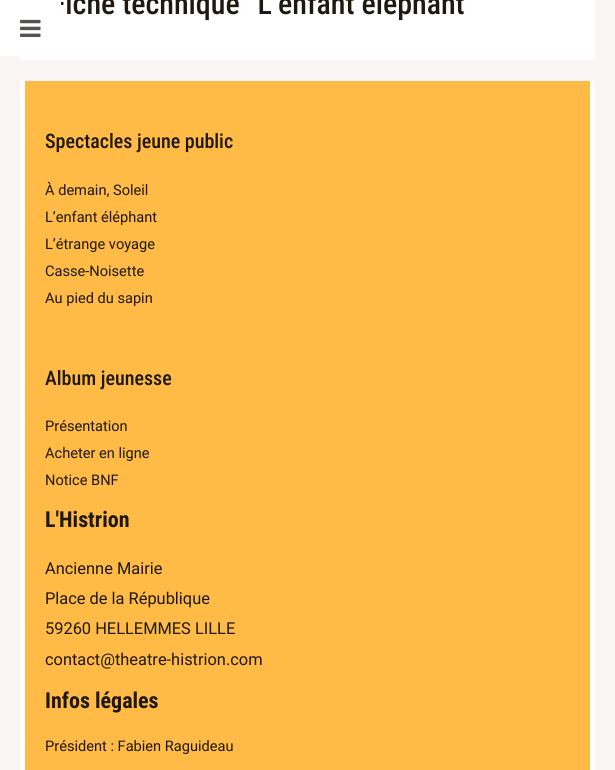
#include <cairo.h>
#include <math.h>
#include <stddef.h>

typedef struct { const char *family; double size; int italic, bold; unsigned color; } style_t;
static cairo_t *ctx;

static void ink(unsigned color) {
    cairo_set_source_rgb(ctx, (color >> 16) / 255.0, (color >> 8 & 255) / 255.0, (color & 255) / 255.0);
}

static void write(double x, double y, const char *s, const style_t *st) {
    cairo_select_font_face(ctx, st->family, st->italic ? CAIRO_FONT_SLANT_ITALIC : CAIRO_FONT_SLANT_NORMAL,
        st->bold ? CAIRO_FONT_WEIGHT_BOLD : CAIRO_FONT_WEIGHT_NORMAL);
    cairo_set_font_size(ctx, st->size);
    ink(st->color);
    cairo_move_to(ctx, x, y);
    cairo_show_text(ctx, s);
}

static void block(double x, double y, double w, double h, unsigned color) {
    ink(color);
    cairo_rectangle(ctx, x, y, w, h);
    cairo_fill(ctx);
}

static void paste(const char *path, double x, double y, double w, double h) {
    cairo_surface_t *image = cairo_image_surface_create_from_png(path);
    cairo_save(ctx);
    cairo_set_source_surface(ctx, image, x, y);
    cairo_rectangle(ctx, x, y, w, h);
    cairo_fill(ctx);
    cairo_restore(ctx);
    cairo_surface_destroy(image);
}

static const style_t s1 = {"Roboto Condensed Medium", 30, 0, 0, 0x1e1810};
static const style_t s2 = {"Roboto Condensed Medium", 20, 0, 0, 0x1e1810};
static const style_t s3 = {"Roboto", 14.6, 0, 0, 0x1e1810};
static const style_t s4 = {"Roboto Condensed", 22, 0, 1, 0x1e1810};
static const style_t s5 = {"Roboto", 16.4, 0, 0, 0x1e1810};

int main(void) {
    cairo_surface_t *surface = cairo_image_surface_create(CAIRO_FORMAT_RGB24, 615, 770);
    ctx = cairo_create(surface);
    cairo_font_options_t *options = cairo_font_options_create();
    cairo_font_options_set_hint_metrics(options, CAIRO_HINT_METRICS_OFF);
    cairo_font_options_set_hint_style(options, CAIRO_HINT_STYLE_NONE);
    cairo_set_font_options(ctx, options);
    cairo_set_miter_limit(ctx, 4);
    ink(0xf8f5f4);
    cairo_paint(ctx);
    block(20, 0, 575, 60, 0xffffff);
    write(51, 14, "Fiche technique “L’enfant éléphant", &s1);
    block(0, 0, 61, 56, 0xffffff);
    paste("pic1.png", 20, 19, 21, 18);
    block(20, 81, 575, 689, 0xffffff);
    block(25, 81, 565, 689, 0xffbb45);
    write(45, 148, "Spectacles jeune public", &s2);
    write(45, 195, "À demain, Soleil", &s3);
    write(45, 222, "L’enfant éléphant", &s3);
    write(45, 249, "L’étrange voyage", &s3);
    write(45, 276, "Casse-Noisette", &s3);
    write(45, 303, "Au pied du sapin", &s3);
    write(45, 385, "Album jeunesse", &s2);
    write(45, 431, "Présentation", &s3);
    write(45, 458, "Acheter en ligne", &s3);
    write(45, 485, "Notice BNF", &s3);
    write(45, 527, "L'Histrion", &s4);
    write(45, 574, "Ancienne Mairie", &s5);
    write(45, 604, "Place de la République", &s5);
    write(45, 634, "59260 HELLEMMES LILLE", &s5);
    write(45, 665, "contact@theatre-histrion.com", &s5);
    write(45, 708, "Infos légales", &s4);
    write(45, 751, "Président : Fabien Raguideau", &s3);
    cairo_surface_write_to_png(surface, "screenshot.png");
    cairo_font_options_destroy(options);
    cairo_destroy(ctx);
    cairo_surface_destroy(surface);
    return 0;
}
